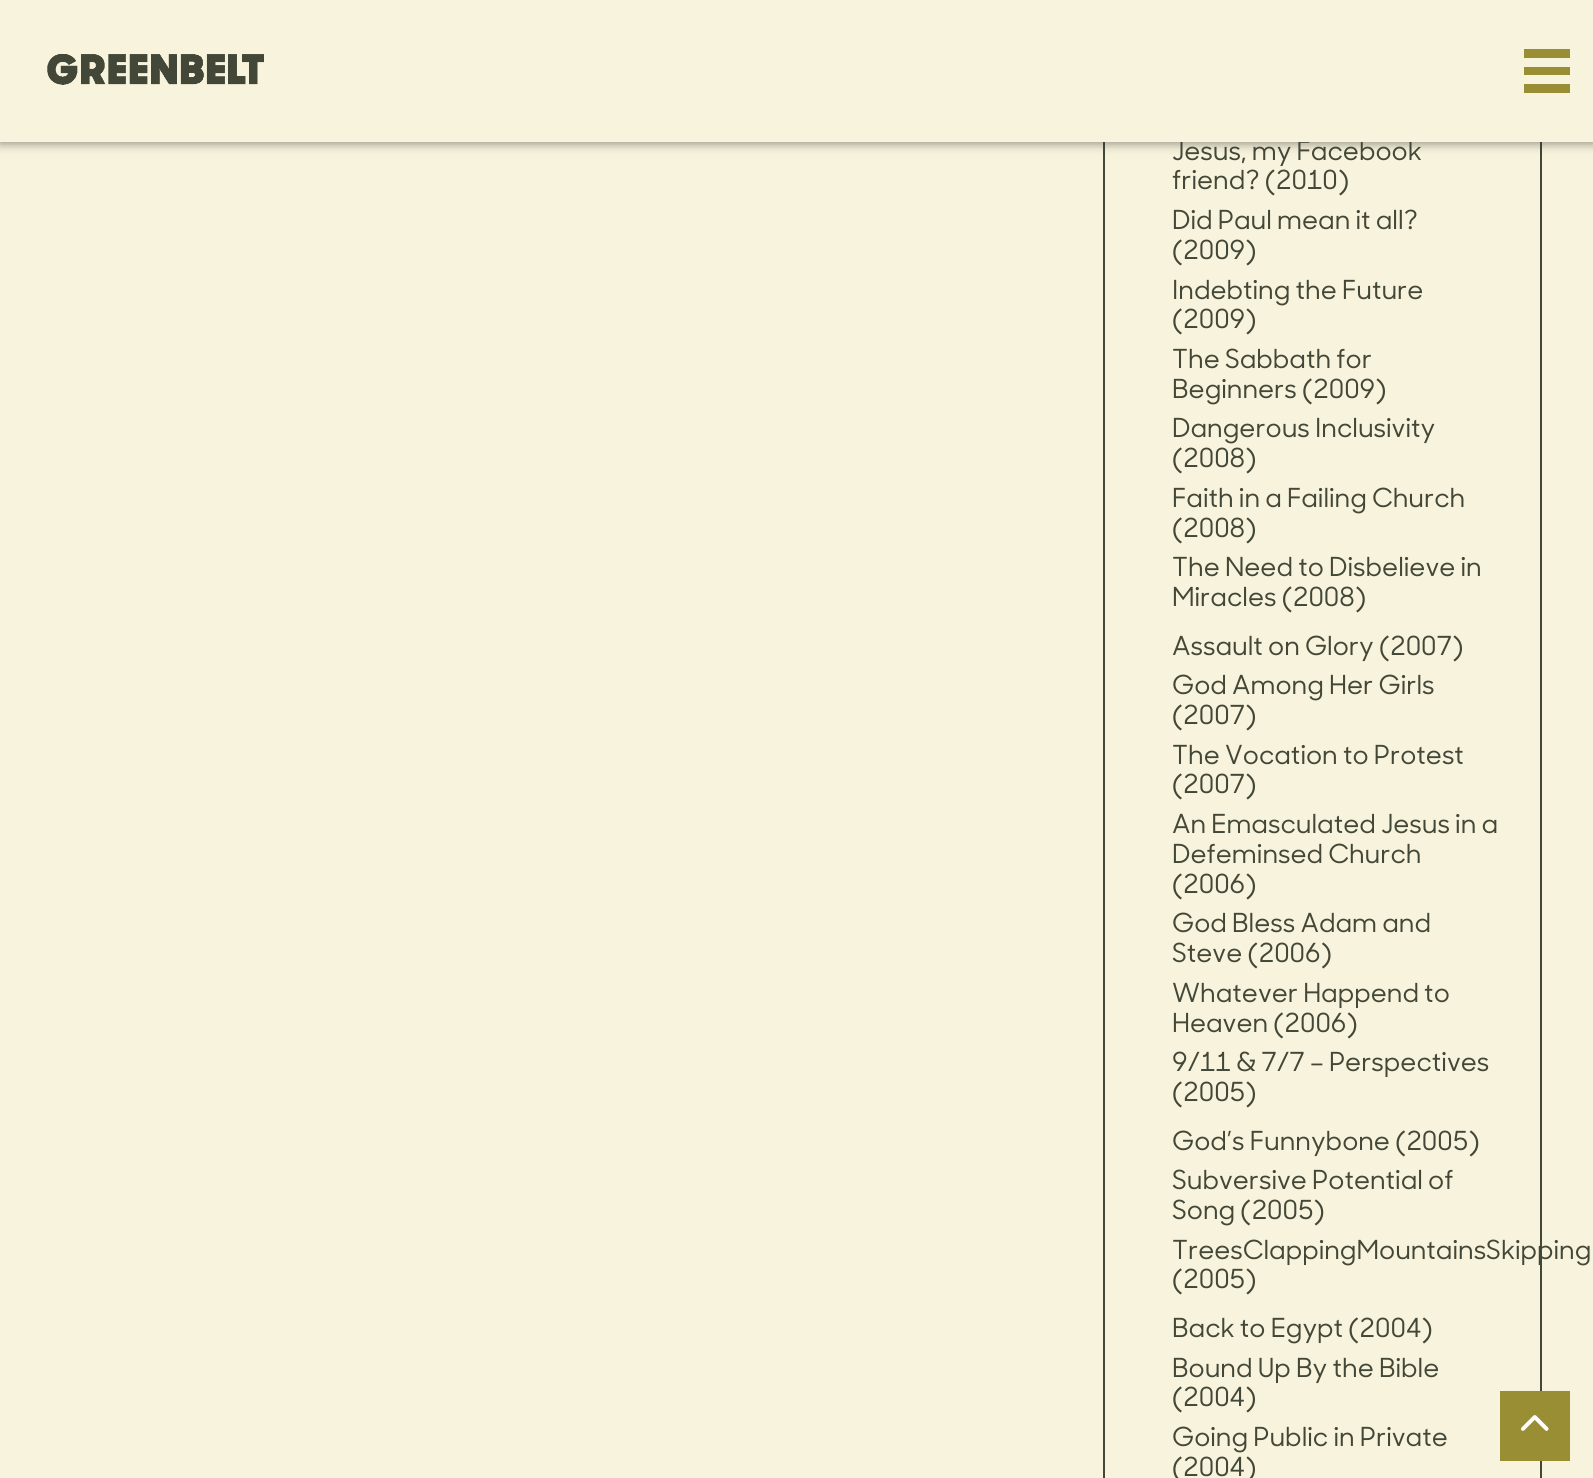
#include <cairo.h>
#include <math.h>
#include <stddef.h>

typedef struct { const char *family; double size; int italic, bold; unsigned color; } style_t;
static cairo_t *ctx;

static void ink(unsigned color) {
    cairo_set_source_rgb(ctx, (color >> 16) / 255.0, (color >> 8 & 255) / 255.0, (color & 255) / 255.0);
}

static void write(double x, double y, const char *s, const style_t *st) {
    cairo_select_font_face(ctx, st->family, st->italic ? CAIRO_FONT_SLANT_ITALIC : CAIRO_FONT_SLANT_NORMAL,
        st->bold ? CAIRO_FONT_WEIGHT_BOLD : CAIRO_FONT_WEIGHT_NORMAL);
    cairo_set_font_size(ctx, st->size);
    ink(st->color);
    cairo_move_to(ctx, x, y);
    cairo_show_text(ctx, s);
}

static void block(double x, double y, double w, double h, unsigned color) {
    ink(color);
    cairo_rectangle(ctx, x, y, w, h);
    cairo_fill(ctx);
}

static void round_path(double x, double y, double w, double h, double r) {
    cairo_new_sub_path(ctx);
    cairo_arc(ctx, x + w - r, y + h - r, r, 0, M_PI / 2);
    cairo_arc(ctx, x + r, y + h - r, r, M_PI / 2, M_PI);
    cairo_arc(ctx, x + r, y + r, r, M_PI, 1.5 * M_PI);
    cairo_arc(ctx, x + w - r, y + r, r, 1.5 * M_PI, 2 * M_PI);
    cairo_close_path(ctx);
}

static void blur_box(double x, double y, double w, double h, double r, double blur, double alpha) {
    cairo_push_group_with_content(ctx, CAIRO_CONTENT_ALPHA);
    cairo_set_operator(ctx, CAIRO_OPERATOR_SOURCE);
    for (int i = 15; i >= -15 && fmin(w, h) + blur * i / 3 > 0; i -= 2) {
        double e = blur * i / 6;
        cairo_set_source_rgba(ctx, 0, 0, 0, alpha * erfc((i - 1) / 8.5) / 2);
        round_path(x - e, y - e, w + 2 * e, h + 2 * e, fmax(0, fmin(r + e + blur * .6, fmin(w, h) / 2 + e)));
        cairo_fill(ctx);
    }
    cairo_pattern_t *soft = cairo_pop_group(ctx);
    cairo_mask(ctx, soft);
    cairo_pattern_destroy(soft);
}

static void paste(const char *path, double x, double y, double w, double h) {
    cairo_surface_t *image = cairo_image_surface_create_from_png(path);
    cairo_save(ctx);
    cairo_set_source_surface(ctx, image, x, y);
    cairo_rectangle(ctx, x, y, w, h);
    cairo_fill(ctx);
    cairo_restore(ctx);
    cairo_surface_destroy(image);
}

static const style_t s1 = {"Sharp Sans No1 Medium", 26.25, 0, 0, 0x434737};

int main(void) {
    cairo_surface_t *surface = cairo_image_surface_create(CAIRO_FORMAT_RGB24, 1593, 1478);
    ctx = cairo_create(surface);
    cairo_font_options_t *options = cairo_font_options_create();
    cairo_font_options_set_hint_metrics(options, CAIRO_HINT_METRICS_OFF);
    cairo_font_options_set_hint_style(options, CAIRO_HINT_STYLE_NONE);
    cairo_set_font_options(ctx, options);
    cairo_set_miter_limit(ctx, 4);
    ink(0xf7f3dc);
    cairo_paint(ctx);
    cairo_rectangle(ctx, 1104, -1, 437, 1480);
    ink(0x434737);
    cairo_stroke(ctx);
    ink(0x323232);
    blur_box(0, 2, 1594, 142, 0, 5, 0.5);
    write(1172, 160, "Jesus, my Facebook", &s1);
    block(0, 0, 1593, 142, 0xf7f3dc);
    paste("pic1.png", 47, 54, 217, 31);
    block(1524, 67, 46, 8, 0x998e34);
    block(1524, 49, 46, 9, 0x998e34);
    block(1524, 84, 46, 9, 0x998e34);
    write(1172, 189, "friend? (2010)", &s1);
    write(1172, 229, "Did Paul mean it all?", &s1);
    write(1172, 259, "(2009)", &s1);
    write(1172, 299, "Indebting the Future", &s1);
    write(1172, 328, "(2009)", &s1);
    write(1172, 368, "The Sabbath for", &s1);
    write(1172, 398, "Beginners (2009)", &s1);
    write(1172, 437, "Dangerous Inclusivity", &s1);
    write(1172, 467, "(2008)", &s1);
    write(1172, 507, "Faith in a Failing Church", &s1);
    write(1172, 537, "(2008)", &s1);
    write(1172, 576, "The Need to Disbelieve in", &s1);
    write(1172, 606, "Miracles (2008)", &s1);
    write(1172, 655, "Assault on Glory (2007)", &s1);
    write(1172, 694, "God Among Her Girls", &s1);
    write(1172, 724, "(2007)", &s1);
    write(1172, 764, "The Vocation to Protest", &s1);
    write(1172, 793, "(2007)", &s1);
    write(1172, 833, "An Emasculated Jesus in a", &s1);
    write(1172, 863, "Defeminsed Church", &s1);
    write(1172, 893, "(2006)", &s1);
    write(1172, 932, "God Bless Adam and", &s1);
    write(1172, 962, "Steve (2006)", &s1);
    write(1172, 1002, "Whatever Happend to", &s1);
    write(1172, 1032, "Heaven (2006)", &s1);
    write(1172, 1071, "9/11 & 7/7 – Perspectives", &s1);
    write(1172, 1101, "(2005)", &s1);
    write(1172, 1150, "God’s Funnybone (2005)", &s1);
    write(1172, 1189, "Subversive Potential of", &s1);
    write(1172, 1219, "Song (2005)", &s1);
    write(1172, 1259, "TreesClappingMountainsSkipping", &s1);
    write(1172, 1288, "(2005)", &s1);
    write(1172, 1337, "Back to Egypt (2004)", &s1);
    write(1172, 1377, "Bound Up By the Bible", &s1);
    write(1172, 1406, "(2004)", &s1);
    write(1172, 1446, "Going Public in Private", &s1);
    write(1172, 1476, "(2004)", &s1);
    block(1500, 1391, 70, 70, 0x998e34);
    paste("pic2.png", 1521, 1415, 28, 16);
    cairo_surface_write_to_png(surface, "screenshot.png");
    cairo_font_options_destroy(options);
    cairo_destroy(ctx);
    cairo_surface_destroy(surface);
    return 0;
}
